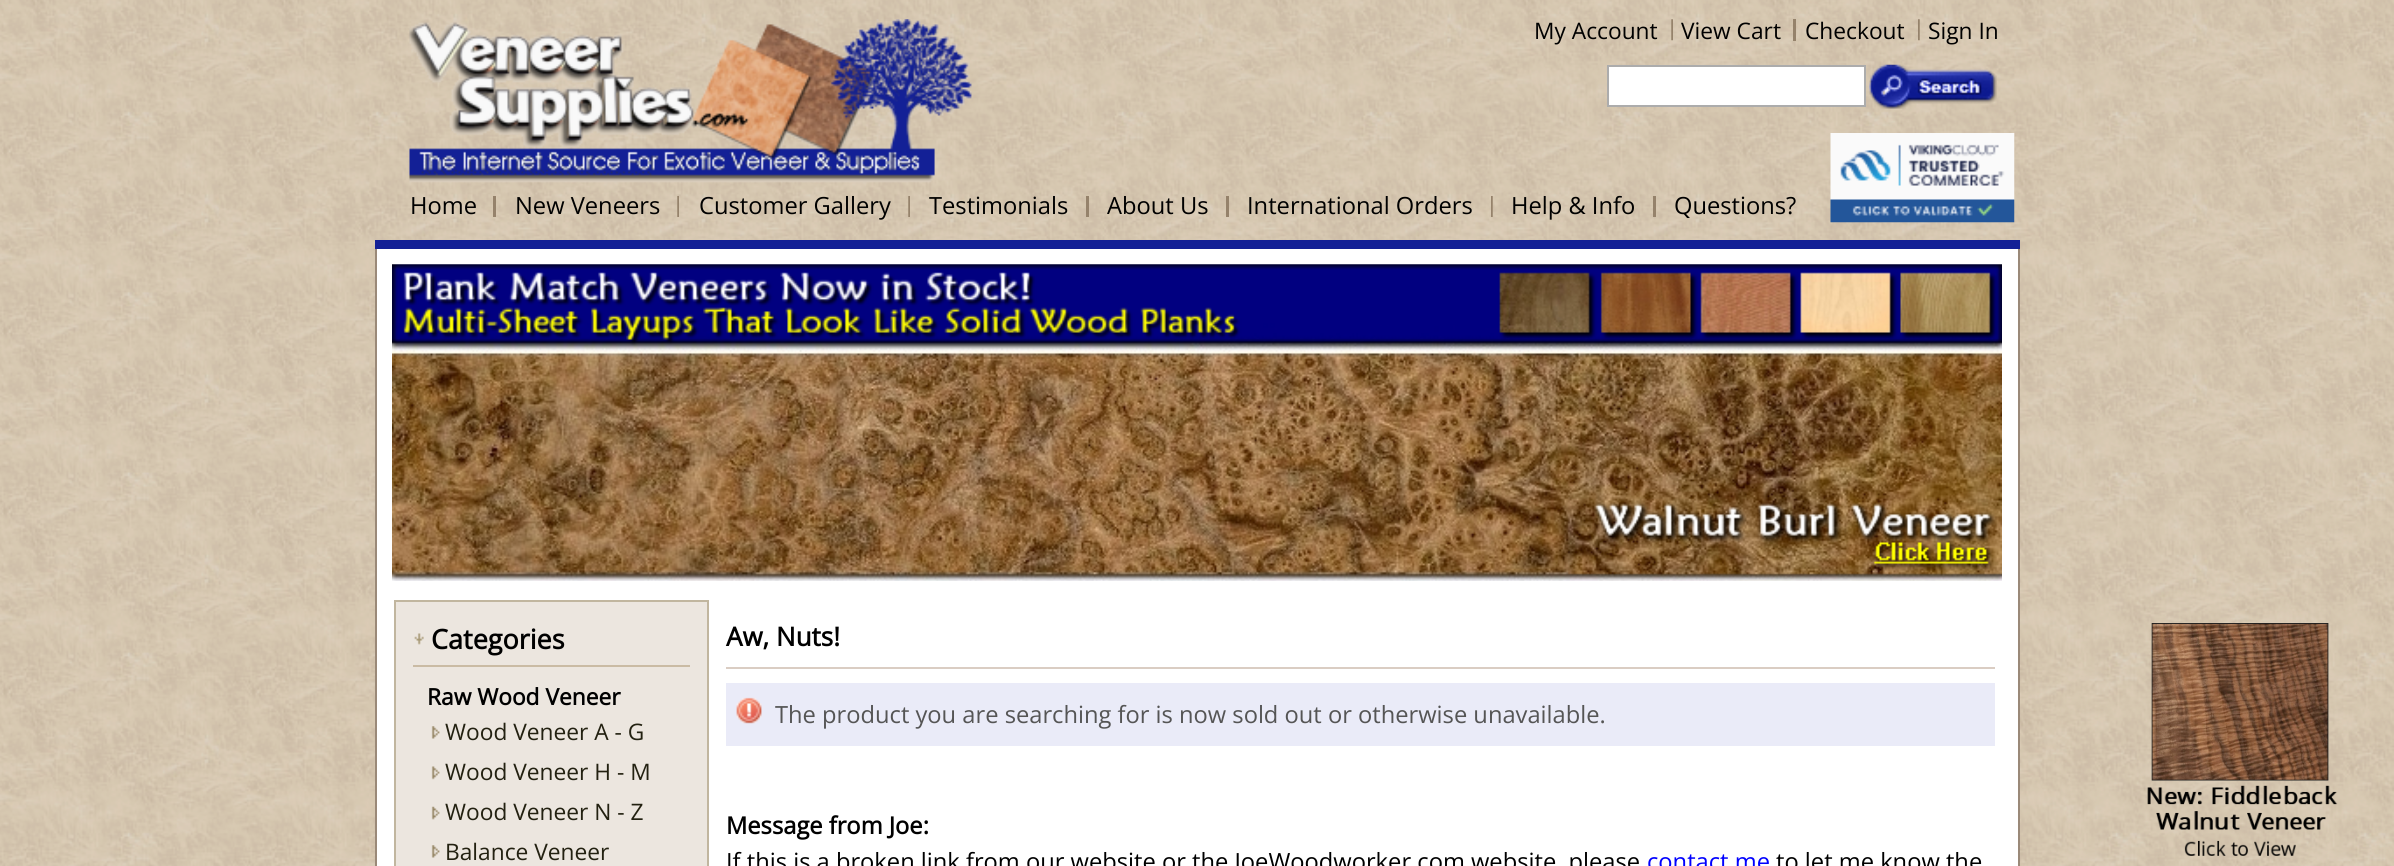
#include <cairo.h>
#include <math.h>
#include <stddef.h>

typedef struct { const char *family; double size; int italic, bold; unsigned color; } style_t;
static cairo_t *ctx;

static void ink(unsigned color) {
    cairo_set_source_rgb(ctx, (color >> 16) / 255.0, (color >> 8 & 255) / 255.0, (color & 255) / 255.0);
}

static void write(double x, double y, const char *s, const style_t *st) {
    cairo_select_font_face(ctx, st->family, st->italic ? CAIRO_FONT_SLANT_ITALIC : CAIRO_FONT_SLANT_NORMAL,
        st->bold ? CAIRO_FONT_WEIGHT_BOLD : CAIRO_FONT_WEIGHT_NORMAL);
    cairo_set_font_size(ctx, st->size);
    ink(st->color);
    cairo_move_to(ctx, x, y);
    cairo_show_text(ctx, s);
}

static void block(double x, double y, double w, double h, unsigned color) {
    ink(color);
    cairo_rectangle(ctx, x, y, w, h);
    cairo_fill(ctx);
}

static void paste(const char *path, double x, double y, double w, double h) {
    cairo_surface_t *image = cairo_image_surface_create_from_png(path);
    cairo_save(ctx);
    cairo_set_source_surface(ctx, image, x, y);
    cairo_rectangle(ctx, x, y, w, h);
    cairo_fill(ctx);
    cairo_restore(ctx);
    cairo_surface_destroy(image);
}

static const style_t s1 = {"Open Sans", 22.75, 0, 0, 0x000000};
static const style_t s2 = {"Open Sans", 23.7, 0, 0, 0x000000};
static const style_t s3 = {"Open Sans", 27, 0, 1, 0x000000};
static const style_t s4 = {"Open Sans", 22.75, 0, 1, 0x000000};
static const style_t s5 = {"Open Sans", 22.75, 0, 0, 0x232111};
static const style_t s6 = {"Open Sans", 26, 0, 1, 0x000000};
static const style_t s7 = {"Open Sans", 23.7, 0, 0, 0x555555};
static const style_t s8 = {"Open Sans", 23.7, 0, 1, 0x000000};
static const style_t s9 = {"Open Sans", 23.7, 0, 0, 0x0000ff};

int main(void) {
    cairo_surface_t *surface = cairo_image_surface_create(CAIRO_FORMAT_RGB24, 2394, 866);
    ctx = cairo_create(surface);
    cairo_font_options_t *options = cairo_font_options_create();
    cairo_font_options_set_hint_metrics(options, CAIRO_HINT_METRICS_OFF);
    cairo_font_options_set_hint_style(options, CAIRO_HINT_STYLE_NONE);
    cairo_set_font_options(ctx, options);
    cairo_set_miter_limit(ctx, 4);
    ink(0xffffff);
    cairo_paint(ctx);
    paste("pic1.png", 0, 0, 2394, 866);
    write(1534, 39, "My Account", &s1);
    paste("pic2.png", 1671, 19, 2, 22);
    write(1681, 39, "View Cart", &s1);
    write(1805, 39, "Checkout", &s1);
    block(1793, 19, 3, 22, 0x95826b);
    paste("pic3.png", 1918, 19, 2, 22);
    write(1928, 39, "Sign In", &s1);
    paste("pic4.png", 409, 19, 563, 164);
    ink(0xffffff);
    cairo_rectangle(ctx, 1608, 66, 257, 40);
    cairo_fill_preserve(ctx);
    ink(0xacacac);
    cairo_stroke(ctx);
    paste("pic5.png", 1869, 64, 128, 45);
    paste("pic6.png", 1830, 133, 185, 90);
    block(375, 240, 1645, 9, 0x132096);
    write(410, 214, "Home", &s2);
    block(493, 196, 3, 21, 0x95826b);
    write(515, 214, "New Veneers", &s2);
    paste("pic7.png", 677, 196, 2, 21);
    write(699, 214, "Customer Gallery", &s2);
    paste("pic8.png", 908, 196, 2, 21);
    write(929, 214, "Testimonials", &s2);
    block(1086, 196, 3, 21, 0x95826b);
    write(1107, 214, "About Us", &s2);
    block(1226, 196, 3, 21, 0x95826b);
    write(1247, 214, "International Orders", &s2);
    paste("pic9.png", 1491, 196, 2, 21);
    write(1511, 214, "Help & Info", &s2);
    block(1653, 196, 3, 21, 0x95826b);
    write(1674, 214, "Questions?", &s2);
    block(377, 249, 1641, 617, 0xffffff);
    block(2018, 249, 2, 617, 0x9a8978);
    block(375, 249, 2, 617, 0x9a8978);
    paste("pic10.png", 392, 264, 1610, 317);
    ink(0xece6df);
    cairo_rectangle(ctx, 395, 601, 313, 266);
    cairo_fill_preserve(ctx);
    ink(0xc1b69f);
    cairo_stroke(ctx);
    paste("pic11.png", 414, 633, 10, 12);
    block(413, 665, 277, 2, 0xcabba4);
    write(431, 649, "Categories", &s3);
    write(427, 705, "Raw Wood Veneer", &s4);
    paste("pic12.png", 431, 726, 9, 13);
    write(445, 740, "Wood Veneer A - G", &s5);
    paste("pic13.png", 431, 766, 9, 14);
    write(445, 780, "Wood Veneer H - M", &s5);
    paste("pic14.png", 431, 806, 9, 14);
    write(445, 820, "Wood Veneer N - Z", &s5);
    paste("pic12.png", 431, 845, 9, 13);
    write(445, 860, "Balance Veneer", &s5);
    block(726, 667, 1269, 2, 0xdacdc3);
    write(726, 646, "Aw, Nuts!", &s6);
    block(726, 683, 1269, 63, 0xeaebf8);
    paste("pic15.png", 736, 697, 26, 27);
    write(775, 723, "The product you are searching for is now sold out or otherwise unavailable.", &s7);
    write(726, 834, "Message from Joe:", &s8);
    write(726, 870, "If this is a broken link from our website or the JoeWoodworker.com website, please", &s2);
    write(1647, 870, "contact me", &s9);
    write(1776, 870, "to let me know the", &s2);
    paste("pic16.png", 2147, 623, 191, 233);
    cairo_surface_write_to_png(surface, "screenshot.png");
    cairo_font_options_destroy(options);
    cairo_destroy(ctx);
    cairo_surface_destroy(surface);
    return 0;
}
